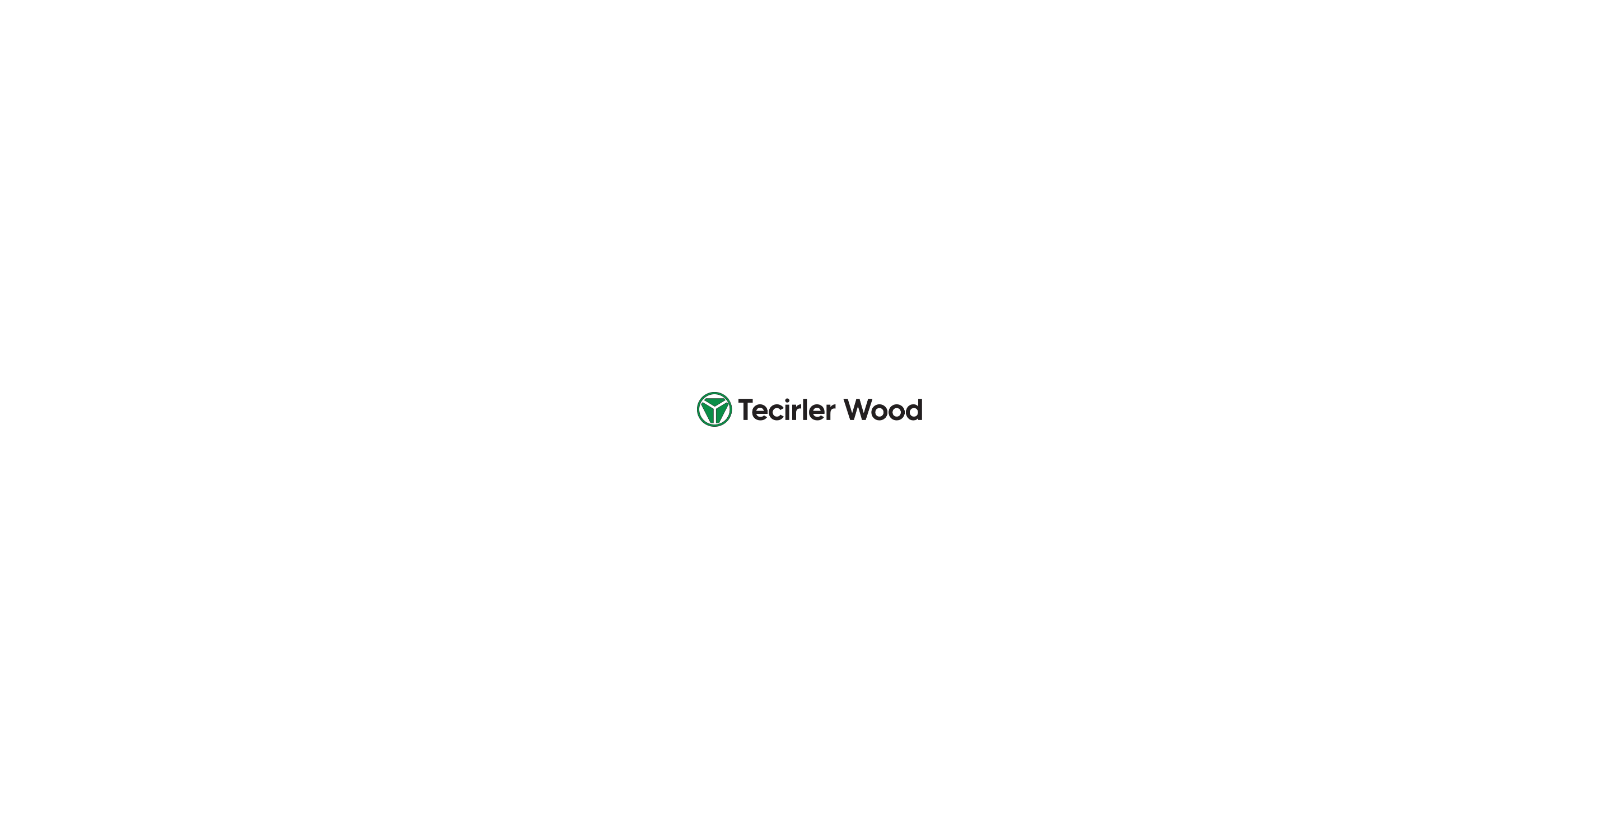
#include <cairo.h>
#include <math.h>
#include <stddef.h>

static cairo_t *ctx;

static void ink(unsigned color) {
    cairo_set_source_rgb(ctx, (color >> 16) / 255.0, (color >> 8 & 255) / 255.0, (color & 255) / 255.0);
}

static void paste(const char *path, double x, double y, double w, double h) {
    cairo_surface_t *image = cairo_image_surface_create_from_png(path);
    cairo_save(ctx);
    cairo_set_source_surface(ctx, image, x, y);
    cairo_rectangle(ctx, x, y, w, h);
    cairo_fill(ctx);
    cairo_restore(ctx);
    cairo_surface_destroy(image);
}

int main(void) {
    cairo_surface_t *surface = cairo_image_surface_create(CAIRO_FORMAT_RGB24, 1619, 819);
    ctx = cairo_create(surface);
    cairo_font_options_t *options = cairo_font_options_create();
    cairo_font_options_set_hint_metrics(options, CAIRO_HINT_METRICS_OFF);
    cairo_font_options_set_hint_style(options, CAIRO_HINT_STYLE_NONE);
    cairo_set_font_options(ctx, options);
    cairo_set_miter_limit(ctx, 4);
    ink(0xffffff);
    cairo_paint(ctx);
    paste("pic1.png", 697, 392, 225, 35);
    cairo_surface_write_to_png(surface, "screenshot.png");
    cairo_font_options_destroy(options);
    cairo_destroy(ctx);
    cairo_surface_destroy(surface);
    return 0;
}
